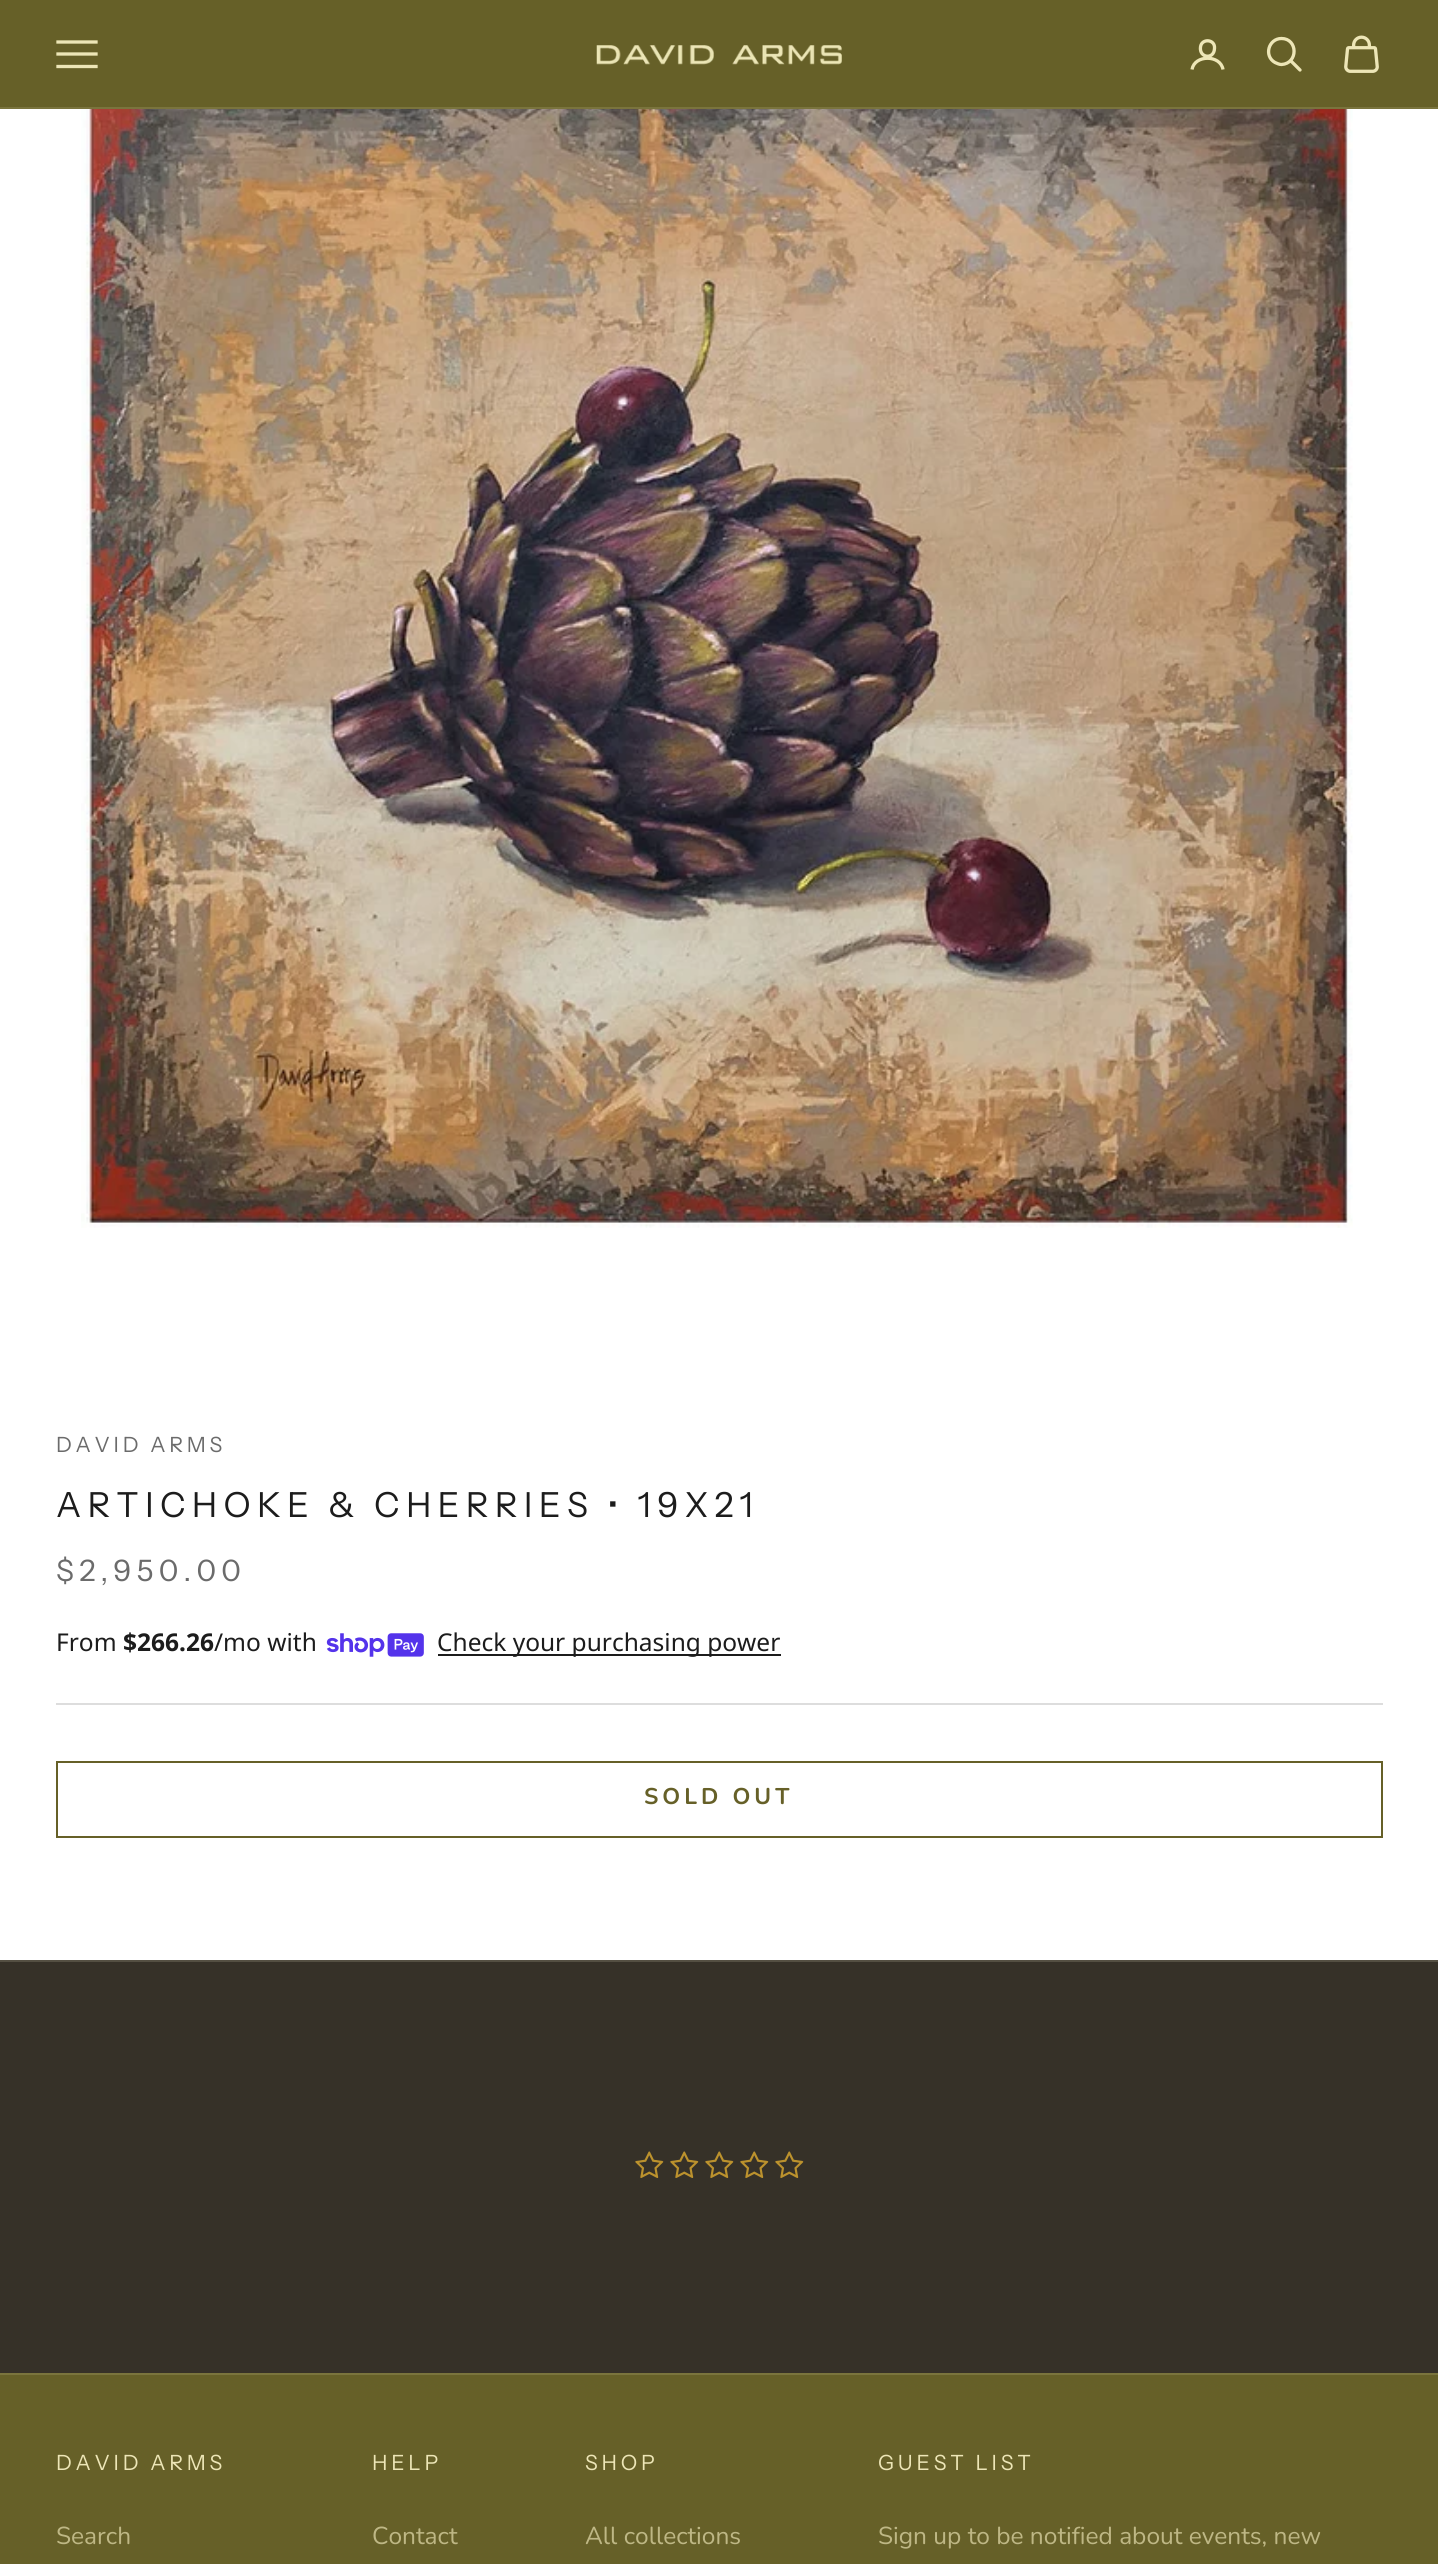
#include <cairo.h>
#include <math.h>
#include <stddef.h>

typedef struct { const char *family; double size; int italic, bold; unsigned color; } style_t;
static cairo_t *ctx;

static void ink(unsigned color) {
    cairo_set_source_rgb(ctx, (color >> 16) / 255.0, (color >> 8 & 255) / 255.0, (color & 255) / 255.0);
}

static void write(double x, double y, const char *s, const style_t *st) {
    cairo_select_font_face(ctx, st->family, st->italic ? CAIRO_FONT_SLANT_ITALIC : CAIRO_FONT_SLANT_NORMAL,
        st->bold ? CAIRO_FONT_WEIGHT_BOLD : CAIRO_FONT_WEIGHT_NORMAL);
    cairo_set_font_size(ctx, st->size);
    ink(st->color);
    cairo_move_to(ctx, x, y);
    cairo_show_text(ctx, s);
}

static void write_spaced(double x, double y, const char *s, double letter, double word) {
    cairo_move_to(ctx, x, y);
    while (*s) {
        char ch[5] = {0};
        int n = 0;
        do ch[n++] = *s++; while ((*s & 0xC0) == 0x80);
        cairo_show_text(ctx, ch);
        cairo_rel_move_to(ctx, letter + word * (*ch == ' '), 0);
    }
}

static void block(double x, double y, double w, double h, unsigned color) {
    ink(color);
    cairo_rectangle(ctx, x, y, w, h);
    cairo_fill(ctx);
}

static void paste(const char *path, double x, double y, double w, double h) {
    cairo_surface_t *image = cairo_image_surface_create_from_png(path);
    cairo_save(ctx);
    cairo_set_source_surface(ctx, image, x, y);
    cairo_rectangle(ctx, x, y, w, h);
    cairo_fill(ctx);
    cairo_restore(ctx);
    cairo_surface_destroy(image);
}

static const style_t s1 = {"Noto Sans", 24.5, 0, 0, 0x1c1c1c};
static const style_t s2 = {"Noto Sans", 24.5, 0, 1, 0x1c1c1c};
static const style_t s3 = {"Nunito", 24.5, 0, 0, 0xbeb785};

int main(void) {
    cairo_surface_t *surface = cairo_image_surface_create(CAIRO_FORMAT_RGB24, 1438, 2564);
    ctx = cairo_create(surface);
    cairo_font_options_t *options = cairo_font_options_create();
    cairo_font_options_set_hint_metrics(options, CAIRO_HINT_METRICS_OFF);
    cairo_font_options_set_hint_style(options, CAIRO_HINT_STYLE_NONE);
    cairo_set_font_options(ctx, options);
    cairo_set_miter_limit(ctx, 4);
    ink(0xffffff);
    cairo_paint(ctx);
    block(0, 0, 1438, 107, 0x666028);
    block(0, 107, 1438, 2, 0x7a743d);
    cairo_new_path(ctx);
    cairo_move_to(ctx, 58, 66.5);
    cairo_line_to(ctx, 96, 66.5);
    cairo_move_to(ctx, 58, 54);
    cairo_line_to(ctx, 96, 54);
    cairo_move_to(ctx, 58, 42);
    cairo_line_to(ctx, 96, 42);
    ink(0xede6b7);
    cairo_set_line_width(ctx, 3.3);
    cairo_set_line_cap(ctx, CAIRO_LINE_CAP_SQUARE);
    cairo_stroke(ctx);
    paste("pic1.png", 596, 45, 246, 20);
    cairo_new_path(ctx);
    cairo_move_to(ctx, 1214.5, 48.5);
    cairo_curve_to(ctx, 1214, 60, 1199, 58, 1200.5, 47);
    cairo_curve_to(ctx, 1201.5, 38, 1215.5, 39, 1214.5, 48.5);
    cairo_close_path(ctx);
    cairo_set_line_cap(ctx, CAIRO_LINE_CAP_ROUND);
    cairo_set_line_join(ctx, CAIRO_LINE_JOIN_ROUND);
    cairo_stroke(ctx);
    cairo_new_path(ctx);
    cairo_move_to(ctx, 1192, 69.5);
    cairo_curve_to(ctx, 1194.5, 54.5, 1220.5, 54.5, 1223, 69.5);
    cairo_set_line_cap(ctx, CAIRO_LINE_CAP_BUTT);
    cairo_set_line_join(ctx, CAIRO_LINE_JOIN_MITER);
    cairo_stroke(ctx);
    cairo_new_path(ctx);
    cairo_move_to(ctx, 1281.5, 38.5);
    cairo_curve_to(ctx, 1268.5, 38.5, 1263.5, 56, 1275, 62.5);
    cairo_curve_to(ctx, 1277, 63.5, 1279.5, 64.5, 1281.5, 64.5);
    cairo_curve_to(ctx, 1298.5, 63.5, 1298, 38.5, 1281.5, 38.5);
    cairo_close_path(ctx);
    cairo_stroke(ctx);
    cairo_new_path(ctx);
    cairo_move_to(ctx, 1291, 61);
    cairo_line_to(ctx, 1300, 70);
    cairo_set_line_cap(ctx, CAIRO_LINE_CAP_ROUND);
    cairo_stroke(ctx);
    paste("pic2.png", 1344, 35, 35, 38);
    paste("pic3.png", 81, 109, 1272, 1119);
    cairo_select_font_face(ctx, "Instrument Sans", CAIRO_FONT_SLANT_NORMAL, CAIRO_FONT_WEIGHT_NORMAL);
    cairo_set_font_size(ctx, 21);
    ink(0x6b6b6b);
    write_spaced(56, 1452, "DAVID ARMS", 3.75, 0);
    cairo_set_font_size(ctx, 34.55);
    ink(0x1c1c1c);
    write_spaced(56, 1517, "ARTICHOKE & CHERRIES • 19X21", 6.25, 0);
    cairo_set_font_size(ctx, 29.5);
    ink(0x6b6b6b);
    write_spaced(56, 1581, "$2,950.00", 5.25, 0);
    write(56, 1651, "From", &s1);
    write(123, 1651, "$266.26", &s2);
    write(214, 1651, "/mo with", &s1);
    paste("pic4.png", 326, 1633, 98, 24);
    block(438, 1654, 343, 2, 0x1c1c1c);
    write(437, 1651, "Check your purchasing power", &s1);
    block(56, 1703, 1327, 2, 0xdddddd);
    cairo_rectangle(ctx, 57, 1762, 1325, 75);
    ink(0x666028);
    cairo_set_line_width(ctx, 2);
    cairo_set_line_cap(ctx, CAIRO_LINE_CAP_BUTT);
    cairo_stroke(ctx);
    cairo_select_font_face(ctx, "Nunito", CAIRO_FONT_SLANT_NORMAL, CAIRO_FONT_WEIGHT_BOLD);
    cairo_set_font_size(ctx, 22.75);
    write_spaced(644, 1804, "SOLD OUT", 4, 0);
    block(0, 1962, 1438, 411, 0x363128);
    block(0, 1960, 1438, 2, 0x544f42);
    paste("pic5.png", 635, 2151, 29, 27);
    paste("pic5.png", 670, 2151, 29, 27);
    paste("pic5.png", 705, 2151, 29, 27);
    paste("pic5.png", 740, 2151, 29, 27);
    paste("pic5.png", 775, 2151, 29, 27);
    block(0, 2375, 1438, 189, 0x666028);
    block(0, 2373, 1438, 2, 0x7a743d);
    cairo_select_font_face(ctx, "Instrument Sans", CAIRO_FONT_SLANT_NORMAL, CAIRO_FONT_WEIGHT_NORMAL);
    cairo_set_font_size(ctx, 21);
    ink(0xede6b7);
    write_spaced(56, 2470, "DAVID ARMS", 3.75, 0);
    write(56, 2544, "Search", &s3);
    cairo_select_font_face(ctx, "Instrument Sans", CAIRO_FONT_SLANT_NORMAL, CAIRO_FONT_WEIGHT_NORMAL);
    cairo_set_font_size(ctx, 21);
    ink(0xede6b7);
    write_spaced(372, 2470, "HELP", 3.75, 0);
    write(372, 2544, "Contact", &s3);
    cairo_select_font_face(ctx, "Instrument Sans", CAIRO_FONT_SLANT_NORMAL, CAIRO_FONT_WEIGHT_NORMAL);
    cairo_set_font_size(ctx, 21);
    ink(0xede6b7);
    write_spaced(585, 2470, "SHOP", 3.75, 0);
    write(585, 2544, "All collections", &s3);
    cairo_select_font_face(ctx, "Instrument Sans", CAIRO_FONT_SLANT_NORMAL, CAIRO_FONT_WEIGHT_NORMAL);
    cairo_set_font_size(ctx, 21);
    ink(0xede6b7);
    write_spaced(878, 2470, "GUEST LIST", 3.75, 0);
    write(878, 2544, "Sign up to be notified about events, new", &s3);
    cairo_surface_write_to_png(surface, "screenshot.png");
    cairo_font_options_destroy(options);
    cairo_destroy(ctx);
    cairo_surface_destroy(surface);
    return 0;
}
